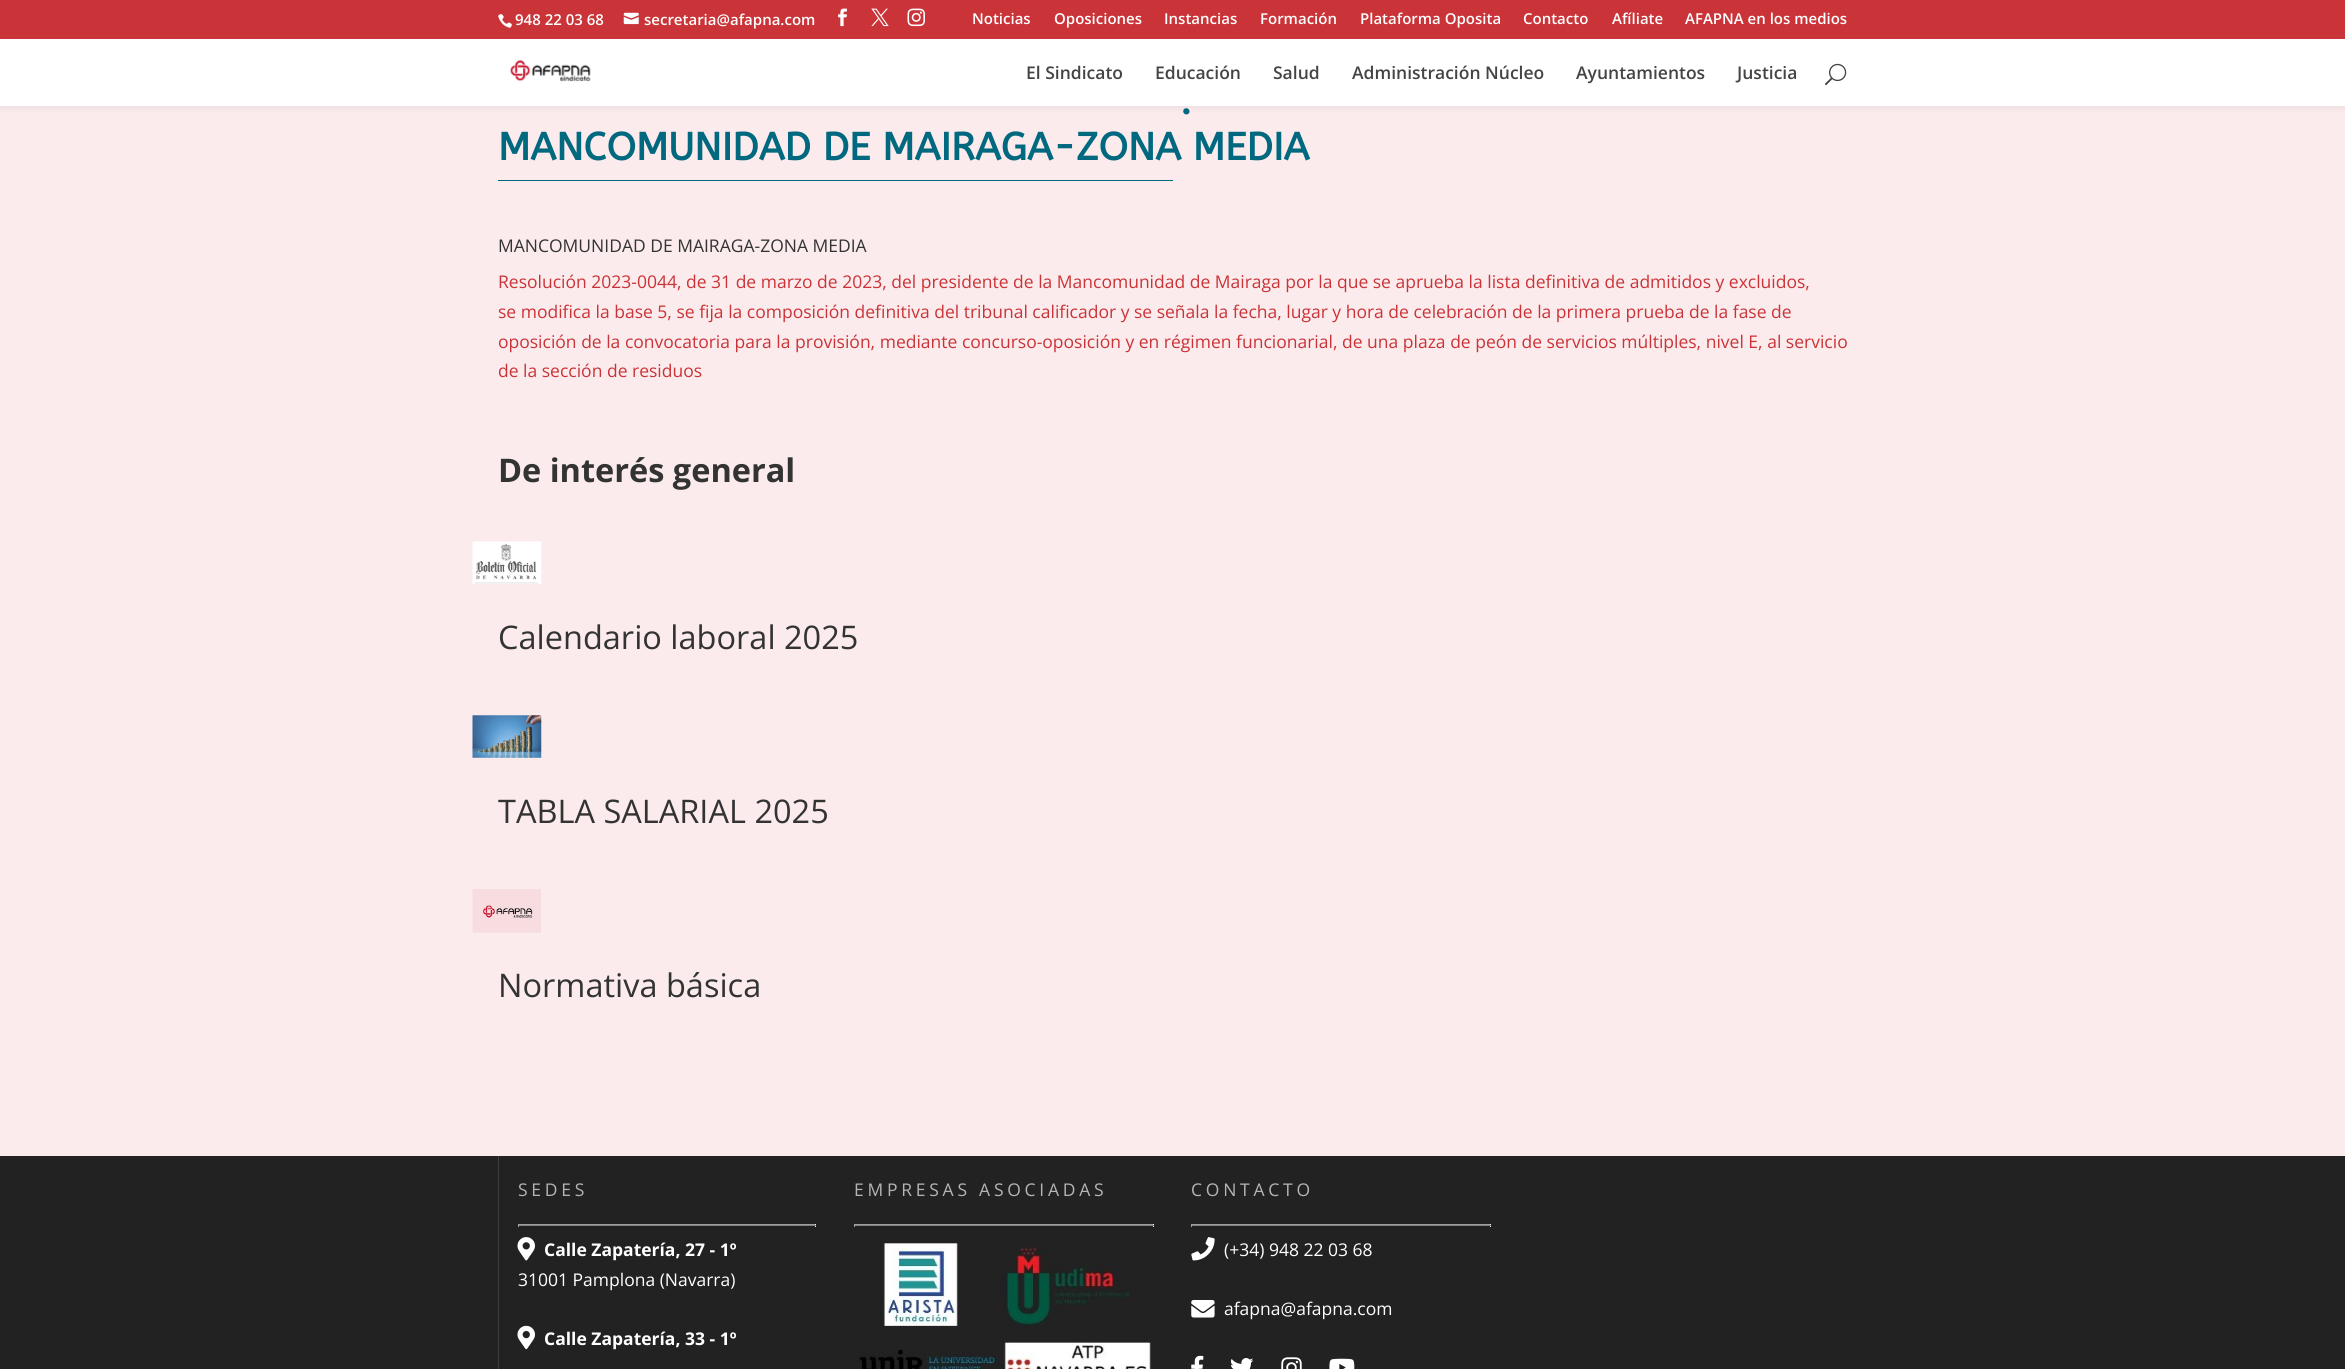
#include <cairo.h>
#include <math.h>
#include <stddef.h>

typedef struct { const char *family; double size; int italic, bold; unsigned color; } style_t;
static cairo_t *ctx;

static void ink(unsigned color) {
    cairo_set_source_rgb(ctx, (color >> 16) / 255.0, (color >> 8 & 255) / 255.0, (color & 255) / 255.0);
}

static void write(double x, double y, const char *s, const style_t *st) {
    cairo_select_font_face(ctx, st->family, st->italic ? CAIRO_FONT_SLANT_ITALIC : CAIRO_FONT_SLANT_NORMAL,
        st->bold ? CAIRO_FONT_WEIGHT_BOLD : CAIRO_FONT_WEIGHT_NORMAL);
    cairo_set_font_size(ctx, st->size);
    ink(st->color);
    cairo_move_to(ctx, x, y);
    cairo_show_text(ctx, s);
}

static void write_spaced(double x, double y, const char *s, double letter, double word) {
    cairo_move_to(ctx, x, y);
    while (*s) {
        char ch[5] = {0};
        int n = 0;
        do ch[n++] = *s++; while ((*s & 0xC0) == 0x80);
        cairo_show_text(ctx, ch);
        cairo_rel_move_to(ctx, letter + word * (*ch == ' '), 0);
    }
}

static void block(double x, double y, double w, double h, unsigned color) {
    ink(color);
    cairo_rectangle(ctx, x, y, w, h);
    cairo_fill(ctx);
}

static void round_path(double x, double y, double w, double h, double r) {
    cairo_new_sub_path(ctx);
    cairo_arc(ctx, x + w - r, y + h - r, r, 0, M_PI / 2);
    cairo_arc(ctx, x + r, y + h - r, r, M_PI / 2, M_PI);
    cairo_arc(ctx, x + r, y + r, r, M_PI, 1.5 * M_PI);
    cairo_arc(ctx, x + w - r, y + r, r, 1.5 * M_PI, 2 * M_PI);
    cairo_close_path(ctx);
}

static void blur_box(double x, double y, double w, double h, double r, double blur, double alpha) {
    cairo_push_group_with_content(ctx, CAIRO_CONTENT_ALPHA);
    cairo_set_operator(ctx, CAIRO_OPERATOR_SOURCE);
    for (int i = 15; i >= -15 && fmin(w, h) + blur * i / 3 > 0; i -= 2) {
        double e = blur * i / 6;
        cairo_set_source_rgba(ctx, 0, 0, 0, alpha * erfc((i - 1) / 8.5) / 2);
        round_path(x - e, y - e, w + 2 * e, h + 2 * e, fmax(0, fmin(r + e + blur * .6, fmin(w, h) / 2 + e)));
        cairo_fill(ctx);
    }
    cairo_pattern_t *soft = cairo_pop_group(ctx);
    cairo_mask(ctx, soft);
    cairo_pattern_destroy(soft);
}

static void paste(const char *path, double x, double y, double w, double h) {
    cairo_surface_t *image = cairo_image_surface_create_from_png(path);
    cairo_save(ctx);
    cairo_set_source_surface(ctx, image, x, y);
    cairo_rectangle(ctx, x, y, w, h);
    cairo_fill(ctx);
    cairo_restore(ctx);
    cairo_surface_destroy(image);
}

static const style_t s1 = {"Open Sans SemiBold", 15, 0, 0, 0xffffff};
static const style_t s2 = {"Open Sans SemiBold", 17.5, 0, 0, 0x444444};
static const style_t s3 = {"ABeeZee", 38.75, 0, 1, 0x00687f};
static const style_t s4 = {"Open Sans", 17.5, 0, 0, 0x333333};
static const style_t s5 = {"Open Sans", 17.5, 0, 0, 0xca3337};
static const style_t s6 = {"Open Sans", 32.5, 0, 1, 0x333333};
static const style_t s7 = {"Open Sans", 32.5, 0, 0, 0x333333};
static const style_t s8 = {"Open Sans", 17.5, 0, 1, 0xffffff};
static const style_t s9 = {"Open Sans", 17.5, 0, 0, 0xffffff};

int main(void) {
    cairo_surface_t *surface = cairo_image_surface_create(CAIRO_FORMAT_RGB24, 2345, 1369);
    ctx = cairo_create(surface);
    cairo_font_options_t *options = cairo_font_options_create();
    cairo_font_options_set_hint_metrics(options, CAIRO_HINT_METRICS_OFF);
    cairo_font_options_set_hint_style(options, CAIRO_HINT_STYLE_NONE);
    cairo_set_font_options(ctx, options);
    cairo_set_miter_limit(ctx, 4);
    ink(0x222222);
    cairo_paint(ctx);
    block(0, 106, 2345, 1050, 0xfbebec);
    ink(0x000000);
    blur_box(0, 39, 2345, 67, 0, 4.5, 0.1);
    block(0, 0, 2345, 39, 0xca3337);
    paste("pic1.png", 498, 14, 14, 14);
    write(515, 25, "948 22 03 68", &s1);
    paste("pic2.png", 623, 12, 16, 13);
    write(644, 25, "secretaria@afapna.com", &s1);
    paste("pic3.png", 838, 8, 9, 19);
    paste("pic4.png", 871, 8, 18, 19);
    paste("pic5.png", 907, 8, 18, 19);
    write(972, 24, "Noticias", &s1);
    write(1054, 24, "Oposiciones", &s1);
    write(1164, 24, "Instancias", &s1);
    write(1260, 24, "Formación", &s1);
    write(1360, 24, "Plataforma Oposita", &s1);
    write(1523, 24, "Contacto", &s1);
    write(1612, 24, "Afíliate", &s1);
    write(1685, 24, "AFAPNA en los medios", &s1);
    block(0, 39, 2345, 67, 0xffffff);
    paste("pic6.png", 510, 59, 81, 23);
    write(1026, 79, "El Sindicato", &s2);
    write(1155, 79, "Educación", &s2);
    write(1273, 79, "Salud", &s2);
    write(1352, 79, "Administración Núcleo", &s2);
    write(1576, 79, "Ayuntamientos", &s2);
    write(1737, 79, "Justicia", &s2);
    paste("pic7.png", 1825, 63, 22, 23);
    write(1180, 114, ".", &s3);
    write(498, 160, "MANCOMUNIDAD DE MAIRAGA-ZONA MEDIA", &s3);
    block(498, 180, 675, 1, 0x00687f);
    write(498, 252, "MANCOMUNIDAD DE MAIRAGA-ZONA MEDIA", &s4);
    write(498, 288, "Resolución 2023-0044, de 31 de marzo de 2023, del presidente de la Mancomunidad de Mairaga por la que se aprueba la lista definitiva de admitidos y excluidos,", &s5);
    write(498, 318, "se modifica la base 5, se fija la composición definitiva del tribunal calificador y se señala la fecha, lugar y hora de celebración de la primera prueba de la fase de", &s5);
    write(498, 348, "oposición de la convocatoria para la provisión, mediante concurso-oposición y en régimen funcionarial, de una plaza de peón de servicios múltiples, nivel E, al servicio", &s5);
    write(498, 377, "de la sección de residuos", &s5);
    write(498, 482, "De interés general", &s6);
    paste("pic8.png", 472, 541, 70, 43);
    write(498, 649, "Calendario laboral 2025", &s7);
    paste("pic9.png", 472, 715, 70, 43);
    write(498, 823, "TABLA SALARIAL 2025", &s7);
    paste("pic10.png", 472, 889, 69, 44);
    write(498, 997, "Normativa básica", &s7);
    block(498, 1156, 1, 213, 0x3d3d3d);
    cairo_set_font_size(ctx, 17.5);
    ink(0xb5b5b5);
    write_spaced(518, 1196, "SEDES", 3.75, 0);
    block(518, 1224, 298, 1, 0x9f9f9f);
    block(815, 1224, 1, 3, 0xeeeeee);
    block(518, 1225, 298, 1, 0x808080);
    block(518, 1224, 1, 3, 0x9f9f9f);
    paste("pic11.png", 517, 1237, 18, 24);
    write(544, 1256, "Calle Zapatería, 27 - 1º", &s8);
    write(518, 1286, "31001 Pamplona (Navarra)", &s9);
    paste("pic12.png", 517, 1325, 18, 25);
    write(544, 1345, "Calle Zapatería, 33 - 1º", &s8);
    cairo_select_font_face(ctx, "Open Sans", CAIRO_FONT_SLANT_NORMAL, CAIRO_FONT_WEIGHT_NORMAL);
    ink(0xb5b5b5);
    write_spaced(854, 1196, "EMPRESAS ASOCIADAS", 3.75, 0);
    block(854, 1224, 300, 1, 0x9f9f9f);
    block(1153, 1224, 1, 3, 0xeeeeee);
    block(854, 1225, 300, 1, 0x808080);
    block(854, 1224, 1, 3, 0x9f9f9f);
    paste("pic13.png", 859, 1242, 292, 127);
    ink(0xb5b5b5);
    write_spaced(1191, 1196, "CONTACTO", 3.75, 0);
    block(1191, 1224, 300, 1, 0x9f9f9f);
    block(1490, 1224, 1, 3, 0xeeeeee);
    block(1191, 1225, 300, 1, 0x808080);
    block(1191, 1224, 1, 3, 0x9f9f9f);
    paste("pic14.png", 1191, 1237, 24, 24);
    write(1224, 1256, "(+34) 948 22 03 68", &s9);
    paste("pic15.png", 1191, 1300, 24, 18);
    write(1224, 1315, "afapna@afapna.com", &s9);
    paste("pic16.png", 1191, 1355, 13, 14);
    paste("pic17.png", 1231, 1358, 23, 11);
    paste("pic18.png", 1281, 1357, 21, 12);
    paste("pic19.png", 1329, 1358, 26, 11);
    cairo_surface_write_to_png(surface, "screenshot.png");
    cairo_font_options_destroy(options);
    cairo_destroy(ctx);
    cairo_surface_destroy(surface);
    return 0;
}
